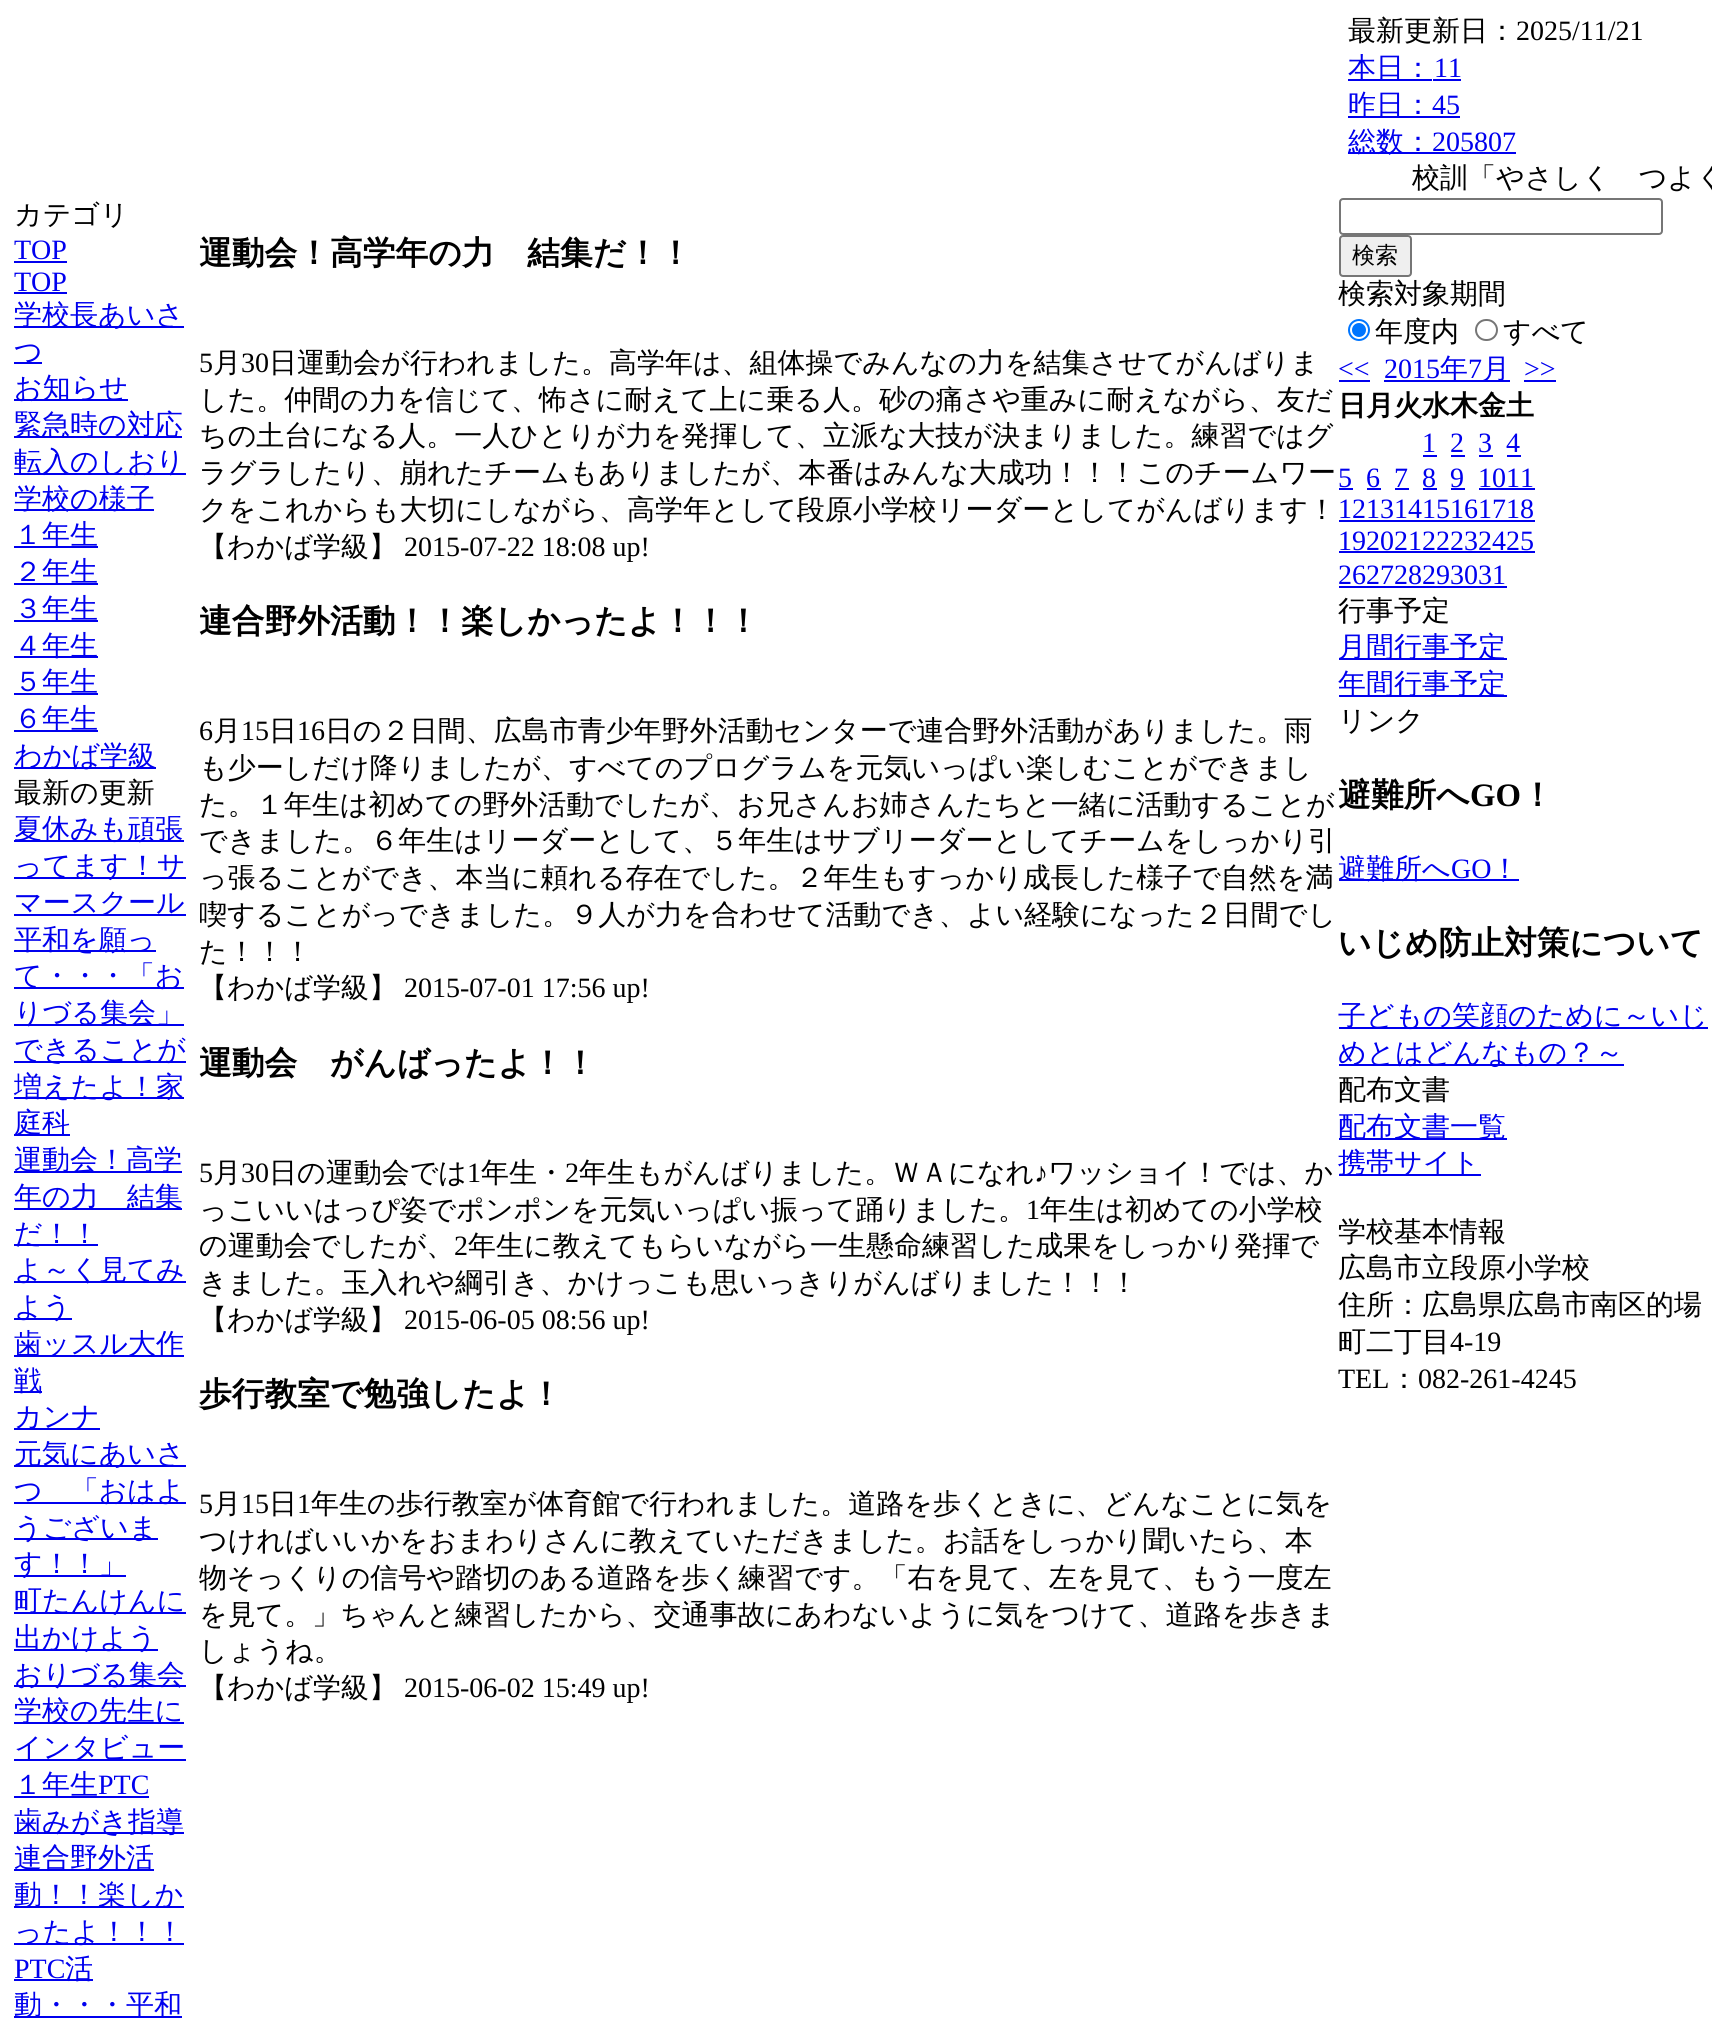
#include <cairo.h>
#include <math.h>
#include <stddef.h>

typedef struct { const char *family; double size; int italic, bold; unsigned color; } style_t;
static cairo_t *ctx;

static void ink(unsigned color) {
    cairo_set_source_rgb(ctx, (color >> 16) / 255.0, (color >> 8 & 255) / 255.0, (color & 255) / 255.0);
}

static void write(double x, double y, const char *s, const style_t *st) {
    cairo_select_font_face(ctx, st->family, st->italic ? CAIRO_FONT_SLANT_ITALIC : CAIRO_FONT_SLANT_NORMAL,
        st->bold ? CAIRO_FONT_WEIGHT_BOLD : CAIRO_FONT_WEIGHT_NORMAL);
    cairo_set_font_size(ctx, st->size);
    ink(st->color);
    cairo_move_to(ctx, x, y);
    cairo_show_text(ctx, s);
}

static void block(double x, double y, double w, double h, unsigned color) {
    ink(color);
    cairo_rectangle(ctx, x, y, w, h);
    cairo_fill(ctx);
}

static void round_path(double x, double y, double w, double h, double r) {
    cairo_new_sub_path(ctx);
    cairo_arc(ctx, x + w - r, y + h - r, r, 0, M_PI / 2);
    cairo_arc(ctx, x + r, y + h - r, r, M_PI / 2, M_PI);
    cairo_arc(ctx, x + r, y + r, r, M_PI, 1.5 * M_PI);
    cairo_arc(ctx, x + w - r, y + r, r, 1.5 * M_PI, 2 * M_PI);
    cairo_close_path(ctx);
}

static const style_t s1 = {"WenQuanYi Zen Hei Medium", 28, 0, 0, 0x000000};
static const style_t s2 = {"Liberation Serif", 28, 0, 0, 0x000000};
static const style_t s3 = {"WenQuanYi Zen Hei Medium", 28, 0, 0, 0x0000ee};
static const style_t s4 = {"Liberation Serif", 28, 0, 0, 0x0000ee};
static const style_t s5 = {"WenQuanYi Zen Hei", 32.75, 0, 1, 0x000000};
static const style_t s6 = {"WenQuanYi Zen Hei Medium", 23, 0, 0, 0x000000};
static const style_t s7 = {"WenQuanYi Zen Hei", 28, 0, 1, 0x000000};
static const style_t s8 = {"Liberation Serif", 32.75, 0, 1, 0x000000};

int main(void) {
    cairo_surface_t *surface = cairo_image_surface_create(CAIRO_FORMAT_RGB24, 1724, 2031);
    ctx = cairo_create(surface);
    cairo_font_options_t *options = cairo_font_options_create();
    cairo_font_options_set_hint_metrics(options, CAIRO_HINT_METRICS_OFF);
    cairo_font_options_set_hint_style(options, CAIRO_HINT_STYLE_NONE);
    cairo_set_font_options(ctx, options);
    cairo_set_miter_limit(ctx, 4);
    ink(0xffffff);
    cairo_paint(ctx);
    write(1348, 40, "最新更新日：", &s1);
    write(1516, 40, "2025/11/21", &s2);
    block(1348, 79, 84, 2, 0x0000ee);
    write(1348, 77, "本日：", &s3);
    write(1434, 77, "11", &s4);
    block(1433, 79, 28, 2, 0x0000ee);
    block(1348, 116, 112, 2, 0x0000ee);
    write(1348, 114, "昨日：", &s3);
    write(1432, 114, "45", &s4);
    block(1348, 152, 168, 2, 0x0000ee);
    write(1348, 151, "総数：", &s3);
    write(1432, 151, "205807", &s4);
    cairo_save(ctx);
    cairo_rectangle(ctx, 14, 161, 1698, 37);
    cairo_clip(ctx);
    write(1412, 187, "校訓「やさしく　つよく", &s1);
    cairo_restore(ctx);
    write(14, 224, "カテゴリ", &s1);
    write(14, 259, "TOP", &s4);
    block(14, 261, 53, 2, 0x0000ee);
    write(14, 291, "TOP", &s4);
    block(14, 292, 53, 2, 0x0000ee);
    block(14, 326, 170, 2, 0x0000ee);
    write(14, 324, "学校長あいさ", &s3);
    block(14, 362, 28, 2, 0x0000ee);
    write(14, 361, "つ", &s3);
    block(14, 399, 114, 2, 0x0000ee);
    write(14, 397, "お知らせ", &s3);
    block(14, 436, 168, 2, 0x0000ee);
    write(14, 434, "緊急時の対応", &s3);
    block(14, 473, 172, 2, 0x0000ee);
    write(14, 471, "転入のしおり", &s3);
    block(14, 509, 140, 2, 0x0000ee);
    write(14, 508, "学校の様子", &s3);
    block(14, 546, 84, 2, 0x0000ee);
    write(14, 544, "１年生", &s3);
    block(14, 583, 84, 2, 0x0000ee);
    write(14, 581, "２年生", &s3);
    block(14, 620, 84, 2, 0x0000ee);
    write(14, 618, "３年生", &s3);
    block(14, 656, 84, 2, 0x0000ee);
    write(14, 655, "４年生", &s3);
    block(14, 693, 84, 2, 0x0000ee);
    write(14, 691, "５年生", &s3);
    block(14, 730, 84, 2, 0x0000ee);
    write(14, 728, "６年生", &s3);
    block(14, 767, 142, 2, 0x0000ee);
    write(14, 765, "わかば学級", &s3);
    write(14, 802, "最新の更新", &s1);
    block(14, 840, 170, 2, 0x0000ee);
    write(14, 838, "夏休みも頑張", &s3);
    block(14, 877, 172, 2, 0x0000ee);
    write(14, 875, "ってます！サ", &s3);
    block(14, 914, 172, 2, 0x0000ee);
    write(14, 912, "マースクール", &s3);
    block(14, 950, 142, 2, 0x0000ee);
    write(14, 949, "平和を願っ", &s3);
    block(14, 987, 170, 2, 0x0000ee);
    write(14, 985, "て・・・「お", &s3);
    block(14, 1024, 170, 2, 0x0000ee);
    write(14, 1022, "りづる集会」", &s3);
    block(14, 1061, 172, 2, 0x0000ee);
    write(14, 1059, "できることが", &s3);
    block(14, 1097, 170, 2, 0x0000ee);
    write(14, 1096, "増えたよ！家", &s3);
    block(14, 1134, 56, 2, 0x0000ee);
    write(14, 1132, "庭科", &s3);
    block(14, 1171, 168, 2, 0x0000ee);
    write(14, 1169, "運動会！高学", &s3);
    block(14, 1208, 168, 2, 0x0000ee);
    write(14, 1206, "年の力　結集", &s3);
    block(14, 1244, 84, 2, 0x0000ee);
    write(14, 1243, "だ！！", &s3);
    block(14, 1281, 172, 2, 0x0000ee);
    write(14, 1279, "よ～く見てみ", &s3);
    block(14, 1318, 58, 2, 0x0000ee);
    write(14, 1316, "よう", &s3);
    block(14, 1355, 170, 2, 0x0000ee);
    write(14, 1353, "歯ッスル大作", &s3);
    block(14, 1391, 28, 2, 0x0000ee);
    write(14, 1390, "戦", &s3);
    block(14, 1428, 86, 2, 0x0000ee);
    write(14, 1426, "カンナ", &s3);
    block(14, 1465, 172, 2, 0x0000ee);
    write(14, 1463, "元気にあいさ", &s3);
    block(14, 1502, 172, 2, 0x0000ee);
    write(14, 1500, "つ　「おはよ", &s3);
    block(14, 1538, 144, 2, 0x0000ee);
    write(14, 1537, "うございま", &s3);
    block(14, 1575, 112, 2, 0x0000ee);
    write(14, 1573, "す！！」", &s3);
    block(14, 1612, 172, 2, 0x0000ee);
    write(14, 1610, "町たんけんに", &s3);
    block(14, 1649, 144, 2, 0x0000ee);
    write(14, 1647, "出かけよう", &s3);
    block(14, 1685, 172, 2, 0x0000ee);
    write(14, 1684, "おりづる集会", &s3);
    block(14, 1722, 170, 2, 0x0000ee);
    write(14, 1720, "学校の先生に", &s3);
    block(14, 1759, 172, 2, 0x0000ee);
    write(14, 1757, "インタビュー", &s3);
    block(14, 1796, 135, 2, 0x0000ee);
    write(14, 1794, "１年生", &s3);
    write(98, 1794, "PTC", &s4);
    block(14, 1832, 170, 2, 0x0000ee);
    write(14, 1831, "歯みがき指導", &s3);
    block(14, 1869, 140, 2, 0x0000ee);
    write(14, 1867, "連合野外活", &s3);
    block(14, 1906, 170, 2, 0x0000ee);
    write(14, 1904, "動！！楽しか", &s3);
    block(14, 1943, 170, 2, 0x0000ee);
    write(14, 1941, "ったよ！！！", &s3);
    write(14, 1978, "PTC", &s4);
    block(14, 1979, 79, 2, 0x0000ee);
    write(65, 1978, "活", &s3);
    block(14, 2016, 168, 2, 0x0000ee);
    write(14, 2014, "動・・・平和", &s3);
    write(199, 264, "運動会！高学年の力　結集だ！！", &s5);
    write(199, 372, "5", &s2);
    write(213, 372, "月", &s1);
    write(241, 372, "30", &s2);
    write(269, 372, "日運動会が行われました。高学年は、組体操でみんなの力を結集させてがんばりま", &s1);
    write(199, 409, "した。仲間の力を信じて、怖さに耐えて上に乗る人。砂の痛さや重みに耐えながら、友だ", &s1);
    write(199, 445, "ちの土台になる人。一人ひとりが力を発揮して、立派な大技が決まりました。練習ではグ", &s1);
    write(199, 482, "ラグラしたり、崩れたチームもありましたが、本番はみんな大成功！！！このチームワー", &s1);
    write(199, 519, "クをこれからも大切にしながら、高学年として段原小学校リーダーとしてがんばります！", &s1);
    write(199, 556, "【わかば学級】", &s1);
    write(404, 556, "2015-07-22 18:08 up!", &s2);
    write(199, 632, "連合野外活動！！楽しかったよ！！！", &s5);
    write(199, 740, "6", &s2);
    write(213, 740, "月", &s1);
    write(241, 740, "15", &s2);
    write(269, 740, "日", &s1);
    write(297, 740, "16", &s2);
    write(325, 740, "日の２日間、広島市青少年野外活動センターで連合野外活動がありました。雨", &s1);
    write(199, 777, "も少ーしだけ降りましたが、すべてのプログラムを元気いっぱい楽しむことができまし", &s1);
    write(199, 814, "た。１年生は初めての野外活動でしたが、お兄さんお姉さんたちと一緒に活動することが", &s1);
    write(199, 850, "できました。６年生はリーダーとして、５年生はサブリーダーとしてチームをしっかり引", &s1);
    write(199, 887, "っ張ることができ、本当に頼れる存在でした。２年生もすっかり成長した様子で自然を満", &s1);
    write(199, 924, "喫することがっできました。９人が力を合わせて活動でき、よい経験になった２日間でし", &s1);
    write(199, 961, "た！！！", &s1);
    write(199, 997, "【わかば学級】", &s1);
    write(404, 997, "2015-07-01 17:56 up!", &s2);
    write(199, 1074, "運動会　がんばったよ！！", &s5);
    write(199, 1182, "5", &s2);
    write(213, 1182, "月", &s1);
    write(241, 1182, "30", &s2);
    write(269, 1182, "日の運動会では", &s1);
    write(467, 1182, "1", &s2);
    write(481, 1182, "年生・", &s1);
    write(565, 1182, "2", &s2);
    write(579, 1182, "年生もがんばりました。ＷＡになれ", &s1);
    write(1034, 1182, "♪", &s2);
    write(1048, 1182, "ワッショイ！では、か", &s1);
    write(199, 1219, "っこいいはっぴ姿でポンポンを元気いっぱい振って踊りました。", &s1);
    write(1026, 1219, "1", &s2);
    write(1040, 1219, "年生は初めての小学校", &s1);
    write(199, 1255, "の運動会でしたが、", &s1);
    write(454, 1255, "2", &s2);
    write(468, 1255, "年生に教えてもらいながら一生懸命練習した成果をしっかり発揮で", &s1);
    write(199, 1292, "きました。玉入れや綱引き、かけっこも思いっきりがんばりました！！！", &s1);
    write(199, 1329, "【わかば学級】", &s1);
    write(404, 1329, "2015-06-05 08:56 up!", &s2);
    write(199, 1405, "歩行教室で勉強したよ！", &s5);
    write(199, 1513, "5", &s2);
    write(213, 1513, "月", &s1);
    write(241, 1513, "15", &s2);
    write(269, 1513, "日", &s1);
    write(297, 1513, "1", &s2);
    write(311, 1513, "年生の歩行教室が体育館で行われました。道路を歩くときに、どんなことに気を", &s1);
    write(199, 1550, "つければいいかをおまわりさんに教えていただきました。お話をしっかり聞いたら、本", &s1);
    write(199, 1587, "物そっくりの信号や踏切のある道路を歩く練習です。「右を見て、左を見て、もう一度左", &s1);
    write(199, 1624, "を見て。」ちゃんと練習したから、交通事故にあわないように気をつけて、道路を歩きま", &s1);
    write(199, 1660, "しょうね。", &s1);
    write(199, 1697, "【わかば学級】", &s1);
    write(404, 1697, "2015-06-02 15:49 up!", &s2);
    round_path(1340, 199, 322, 35, 3);
    ink(0x767676);
    cairo_stroke(ctx);
    ink(0xefefef);
    round_path(1340, 236, 71, 40, 3);
    cairo_fill_preserve(ctx);
    ink(0x767676);
    cairo_stroke(ctx);
    write(1352, 263, "検索", &s6);
    write(1338, 303, "検索対象期間", &s1);
    cairo_new_path(ctx);
    cairo_arc(ctx, 1359, 330, 10, 0, 2 * M_PI);
    ink(0x0075ff);
    cairo_stroke(ctx);
    cairo_arc(ctx, 1359, 330, 7, 0, 2 * M_PI);
    cairo_fill(ctx);
    write(1375, 341, "年度内", &s1);
    round_path(1476, 320, 21, 20, 10);
    ink(0x767676);
    cairo_stroke(ctx);
    write(1503, 341, "すべて", &s1);
    write(1338, 378, "<<", &s4);
    block(1339, 380, 31, 2, 0x0000ee);
    write(1384, 378, "2015", &s4);
    block(1384, 380, 126, 2, 0x0000ee);
    write(1440, 378, "年", &s3);
    write(1468, 378, "7", &s4);
    write(1482, 378, "月", &s3);
    write(1524, 378, ">>", &s4);
    block(1524, 380, 32, 2, 0x0000ee);
    write(1338, 415, "日月火水木金土", &s7);
    write(1422, 452, "1", &s4);
    block(1423, 455, 14, 2, 0x0000ee);
    write(1450, 452, "2", &s4);
    block(1451, 455, 14, 2, 0x0000ee);
    write(1478, 452, "3", &s4);
    block(1479, 455, 14, 2, 0x0000ee);
    write(1506, 452, "4", &s4);
    block(1507, 455, 14, 2, 0x0000ee);
    write(1338, 487, "5", &s4);
    block(1339, 488, 14, 2, 0x0000ee);
    write(1366, 487, "6", &s4);
    block(1367, 488, 14, 2, 0x0000ee);
    write(1394, 487, "7", &s4);
    block(1395, 488, 14, 2, 0x0000ee);
    write(1422, 487, "8", &s4);
    block(1423, 488, 14, 2, 0x0000ee);
    write(1450, 487, "9", &s4);
    block(1451, 488, 14, 2, 0x0000ee);
    write(1478, 487, "1011", &s4);
    block(1479, 488, 56, 2, 0x0000ee);
    write(1338, 518, "12131415161718", &s4);
    block(1339, 520, 196, 2, 0x0000ee);
    write(1338, 550, "19202122232425", &s4);
    block(1339, 551, 196, 2, 0x0000ee);
    write(1338, 584, "262728293031", &s4);
    block(1339, 586, 168, 2, 0x0000ee);
    write(1338, 620, "行事予定", &s1);
    block(1339, 658, 168, 2, 0x0000ee);
    write(1338, 656, "月間行事予定", &s3);
    block(1339, 695, 168, 2, 0x0000ee);
    write(1338, 693, "年間行事予定", &s3);
    write(1338, 730, "リンク", &s1);
    write(1338, 806, "避難所へ", &s5);
    write(1470, 806, "GO", &s8);
    write(1521, 806, "！", &s5);
    block(1339, 879, 180, 2, 0x0000ee);
    write(1338, 878, "避難所へ", &s3);
    write(1451, 878, "GO", &s4);
    write(1491, 878, "！", &s3);
    write(1338, 954, "いじめ防止対策について", &s5);
    block(1339, 1027, 369, 2, 0x0000ee);
    write(1338, 1025, "子どもの笑顔のために～いじ", &s3);
    block(1339, 1064, 285, 2, 0x0000ee);
    write(1338, 1062, "めとはどんなもの？～", &s3);
    write(1338, 1099, "配布文書", &s1);
    block(1339, 1138, 168, 2, 0x0000ee);
    write(1338, 1136, "配布文書一覧", &s3);
    block(1339, 1174, 142, 2, 0x0000ee);
    write(1338, 1172, "携帯サイト", &s3);
    write(1338, 1241, "学校基本情報", &s1);
    write(1338, 1277, "広島市立段原小学校", &s1);
    write(1338, 1314, "住所：広島県広島市南区的場", &s1);
    write(1338, 1351, "町二丁目", &s1);
    write(1450, 1351, "4-19", &s2);
    write(1338, 1388, "TEL", &s2);
    write(1390, 1388, "：", &s1);
    write(1418, 1388, "082-261-4245", &s2);
    cairo_surface_write_to_png(surface, "screenshot.png");
    cairo_font_options_destroy(options);
    cairo_destroy(ctx);
    cairo_surface_destroy(surface);
    return 0;
}
